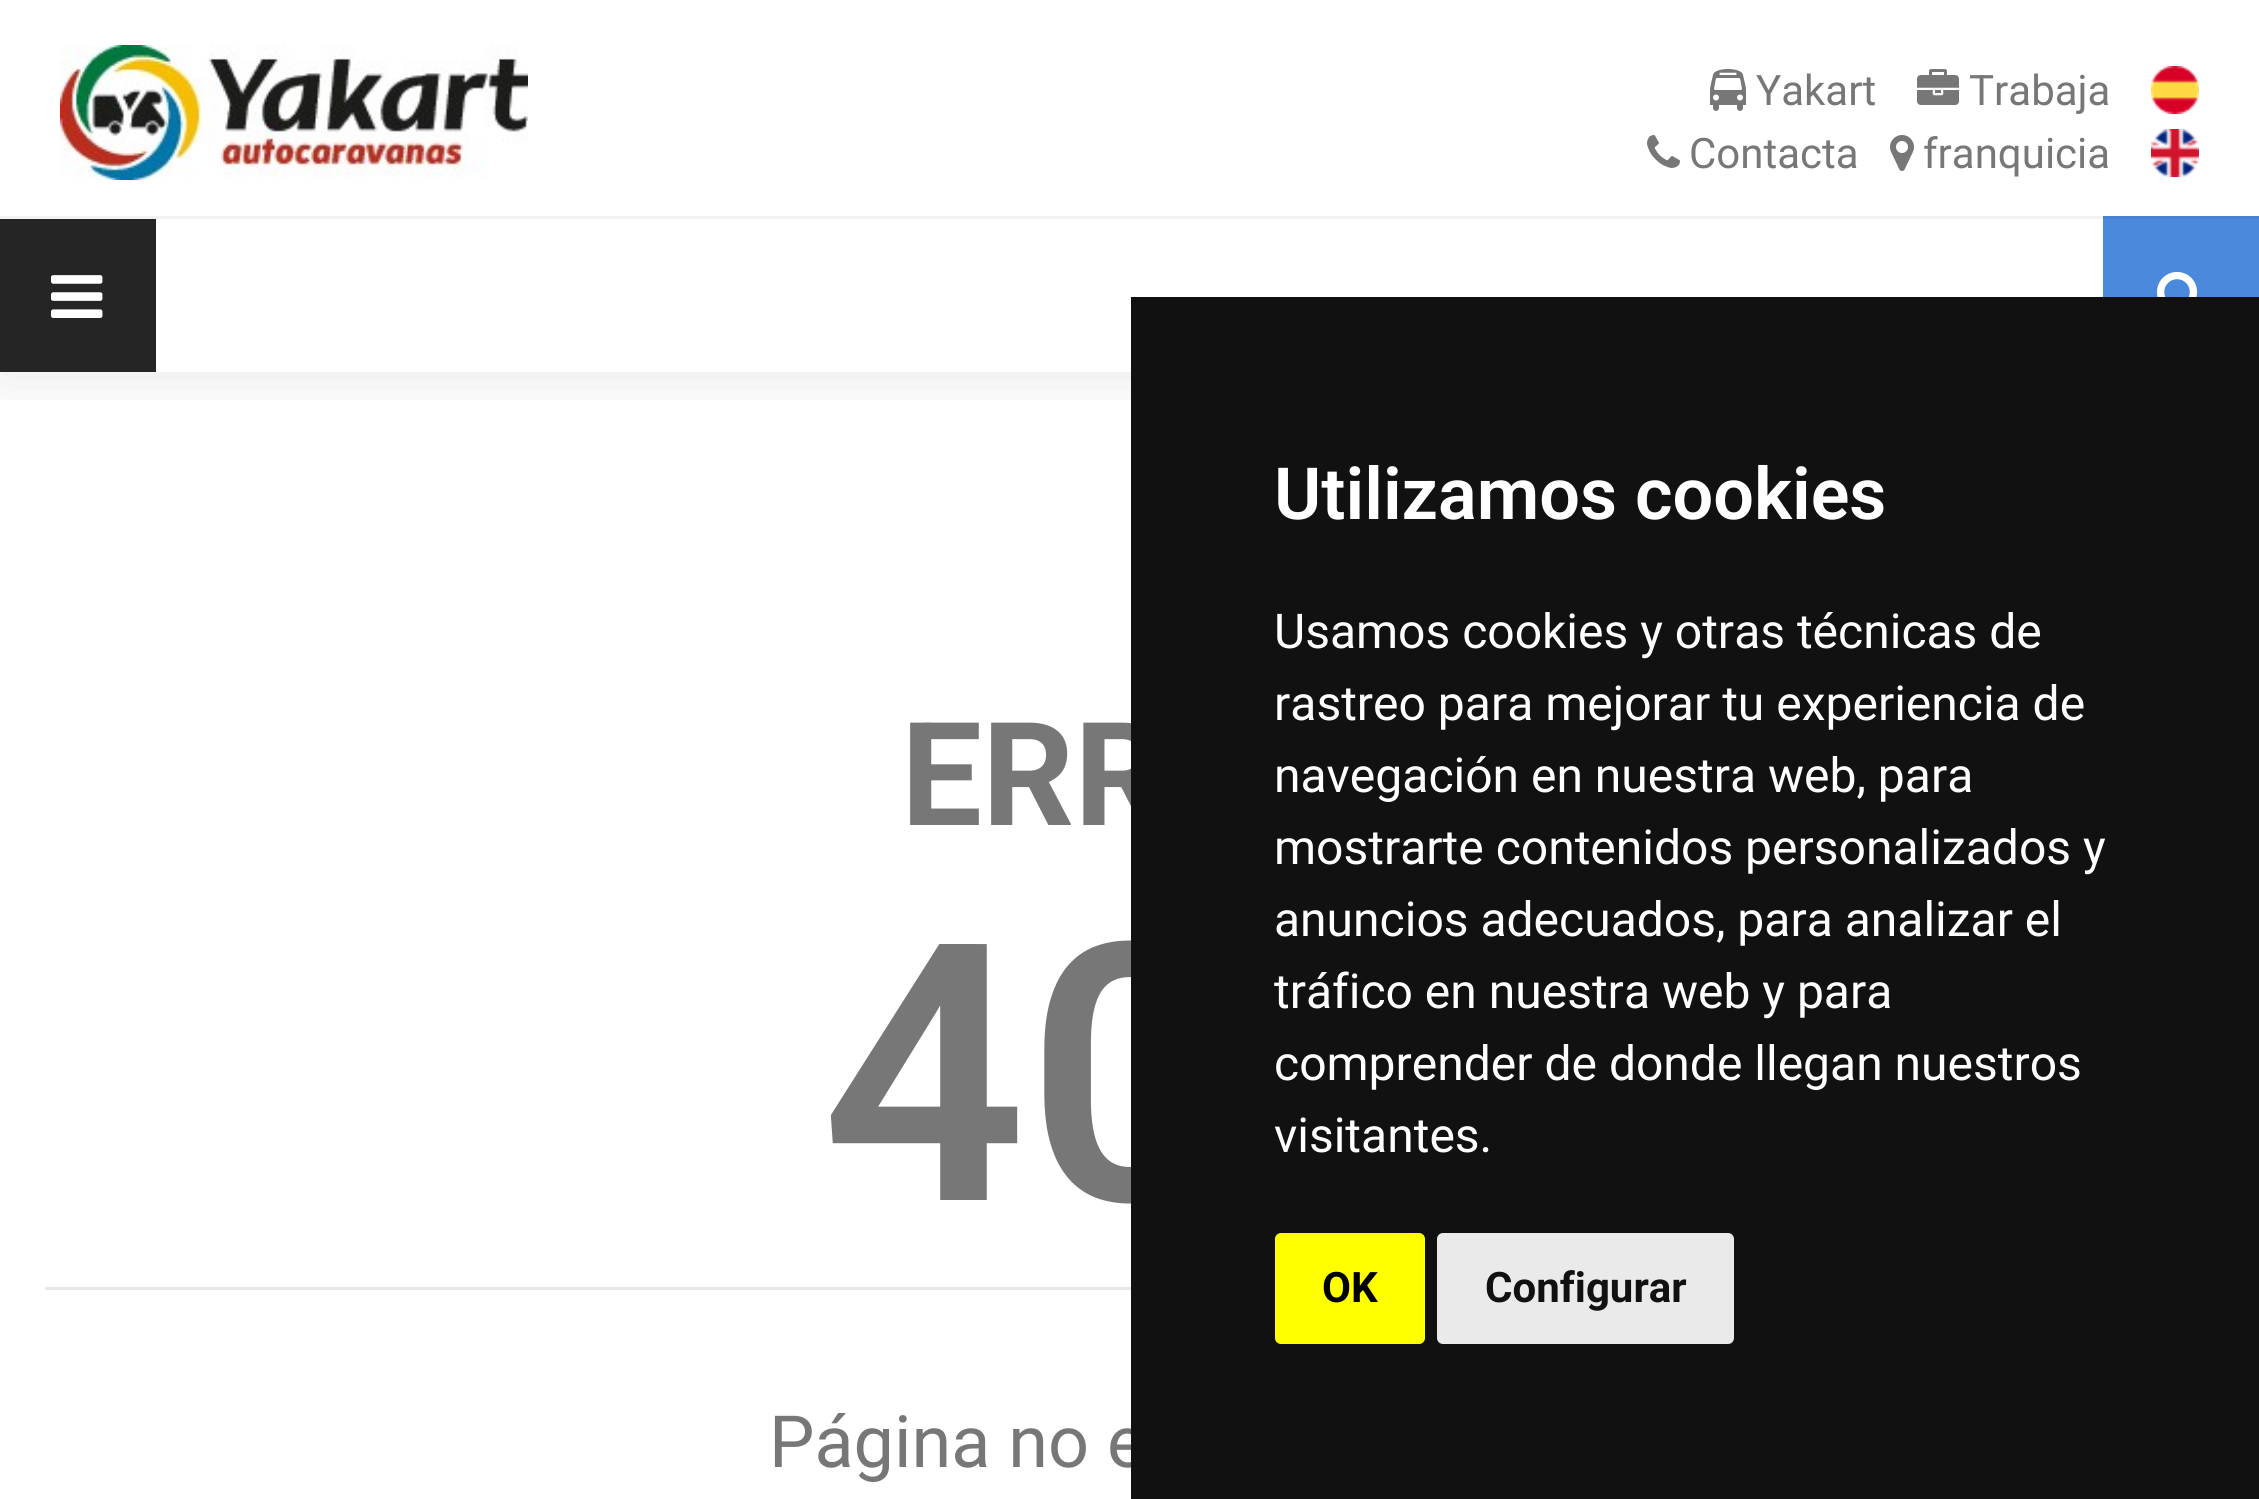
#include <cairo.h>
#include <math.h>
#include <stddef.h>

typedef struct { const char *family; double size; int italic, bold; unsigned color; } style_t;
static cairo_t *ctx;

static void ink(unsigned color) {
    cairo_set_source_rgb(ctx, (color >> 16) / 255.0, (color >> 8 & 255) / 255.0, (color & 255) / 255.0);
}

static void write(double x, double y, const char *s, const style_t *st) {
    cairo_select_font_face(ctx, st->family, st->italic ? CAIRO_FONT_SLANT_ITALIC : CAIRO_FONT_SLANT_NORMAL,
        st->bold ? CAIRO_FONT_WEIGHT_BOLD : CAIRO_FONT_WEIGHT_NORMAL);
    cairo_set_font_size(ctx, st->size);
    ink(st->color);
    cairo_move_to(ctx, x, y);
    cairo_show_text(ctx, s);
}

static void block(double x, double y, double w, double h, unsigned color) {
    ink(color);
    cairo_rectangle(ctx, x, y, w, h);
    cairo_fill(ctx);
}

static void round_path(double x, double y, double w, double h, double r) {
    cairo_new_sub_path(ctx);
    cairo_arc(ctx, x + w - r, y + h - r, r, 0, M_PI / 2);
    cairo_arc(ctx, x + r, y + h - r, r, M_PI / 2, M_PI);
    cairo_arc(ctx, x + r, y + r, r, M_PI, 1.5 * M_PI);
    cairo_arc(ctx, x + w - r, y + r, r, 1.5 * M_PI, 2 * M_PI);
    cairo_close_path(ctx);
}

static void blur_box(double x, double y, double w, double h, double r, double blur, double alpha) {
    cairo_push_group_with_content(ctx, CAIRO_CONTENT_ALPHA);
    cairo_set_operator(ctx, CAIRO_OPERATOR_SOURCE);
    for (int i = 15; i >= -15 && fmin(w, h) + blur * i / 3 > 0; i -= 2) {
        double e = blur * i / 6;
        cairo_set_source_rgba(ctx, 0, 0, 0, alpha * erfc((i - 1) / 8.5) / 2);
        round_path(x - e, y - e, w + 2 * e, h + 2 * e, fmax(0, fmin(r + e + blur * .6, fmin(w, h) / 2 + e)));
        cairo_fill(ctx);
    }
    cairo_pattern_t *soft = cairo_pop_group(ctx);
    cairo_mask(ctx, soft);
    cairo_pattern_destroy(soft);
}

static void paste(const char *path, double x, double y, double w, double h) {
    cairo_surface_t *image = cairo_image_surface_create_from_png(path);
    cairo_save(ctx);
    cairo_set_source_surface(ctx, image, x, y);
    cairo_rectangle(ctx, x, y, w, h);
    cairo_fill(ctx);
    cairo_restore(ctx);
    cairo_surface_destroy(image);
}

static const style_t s1 = {"Roboto", 42, 0, 0, 0x777777};
static const style_t s2 = {"Roboto", 144, 0, 1, 0x777777};
static const style_t s3 = {"Roboto SemiBold", 360, 0, 0, 0x777777};
static const style_t s4 = {"Roboto", 72, 0, 0, 0x777777};
static const style_t s5 = {"Roboto SemiBold", 72, 0, 0, 0xffffff};
static const style_t s6 = {"Roboto", 48, 0, 0, 0xffffff};
static const style_t s7 = {"Roboto", 42, 0, 1, 0x000000};
static const style_t s8 = {"Roboto", 42, 0, 1, 0x111111};

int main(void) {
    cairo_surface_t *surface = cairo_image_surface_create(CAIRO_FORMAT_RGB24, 2259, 1499);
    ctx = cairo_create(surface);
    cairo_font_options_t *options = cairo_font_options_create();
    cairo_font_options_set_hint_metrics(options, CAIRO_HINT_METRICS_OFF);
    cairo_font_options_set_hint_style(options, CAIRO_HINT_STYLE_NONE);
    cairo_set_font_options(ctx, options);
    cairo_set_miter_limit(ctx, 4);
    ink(0xffffff);
    cairo_paint(ctx);
    block(0, 216, 2103, 3, 0xf2f2f2);
    cairo_save(ctx);
    cairo_rectangle(ctx, 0, 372, 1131, 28);
    cairo_clip(ctx);
    ink(0x000000);
    blur_box(0, 219, 2259, 156, 0, 30, 0.1);
    cairo_restore(ctx);
    block(0, 181, 2259, 35, 0xffffff);
    paste("pic1.png", 60, 45, 468, 135);
    paste("pic2.png", 1710, 69, 36, 42);
    write(1756, 105, "Yakart", &s1);
    paste("pic3.png", 1917, 69, 42, 36);
    write(1969, 105, "Trabaja", &s1);
    paste("pic4.png", 2151, 66, 48, 48);
    paste("pic5.png", 1647, 135, 33, 33);
    write(1689, 168, "Contacta", &s1);
    paste("pic6.png", 1890, 135, 24, 36);
    write(1923, 168, "franquicia", &s1);
    paste("pic7.png", 2151, 129, 48, 48);
    block(0, 219, 156, 153, 0x252525);
    paste("pic8.png", 51, 275, 52, 43);
    block(2103, 219, 156, 78, 0x4a89dc);
    block(2103, 216, 156, 3, 0x4682d1);
    paste("pic9.png", 2157, 271, 41, 26);
    write(901, 825, "ERR", &s2);
    write(821, 1200, "40", &s3);
    block(45, 1287, 1086, 3, 0xe8e8e8);
    write(769, 1467, "Página no e", &s4);
    block(1131, 297, 1128, 1202, 0x111111);
    write(1274, 519, "Utilizamos cookies", &s5);
    write(1274, 648, "Usamos cookies y otras técnicas de", &s6);
    write(1274, 720, "rastreo para mejorar tu experiencia de", &s6);
    write(1274, 792, "navegación en nuestra web, para", &s6);
    write(1274, 864, "mostrarte contenidos personalizados y", &s6);
    write(1274, 936, "anuncios adecuados, para analizar el", &s6);
    write(1274, 1008, "tráfico en nuestra web y para", &s6);
    write(1274, 1080, "comprender de donde llegan nuestros", &s6);
    write(1274, 1152, "visitantes.", &s6);
    ink(0xffff00);
    round_path(1275, 1233, 150, 111, 6);
    cairo_fill(ctx);
    write(1322, 1302, "OK", &s7);
    ink(0xeaeaea);
    round_path(1437, 1233, 297, 111, 6);
    cairo_fill(ctx);
    write(1485, 1302, "Configurar", &s8);
    cairo_surface_write_to_png(surface, "screenshot.png");
    cairo_font_options_destroy(options);
    cairo_destroy(ctx);
    cairo_surface_destroy(surface);
    return 0;
}
